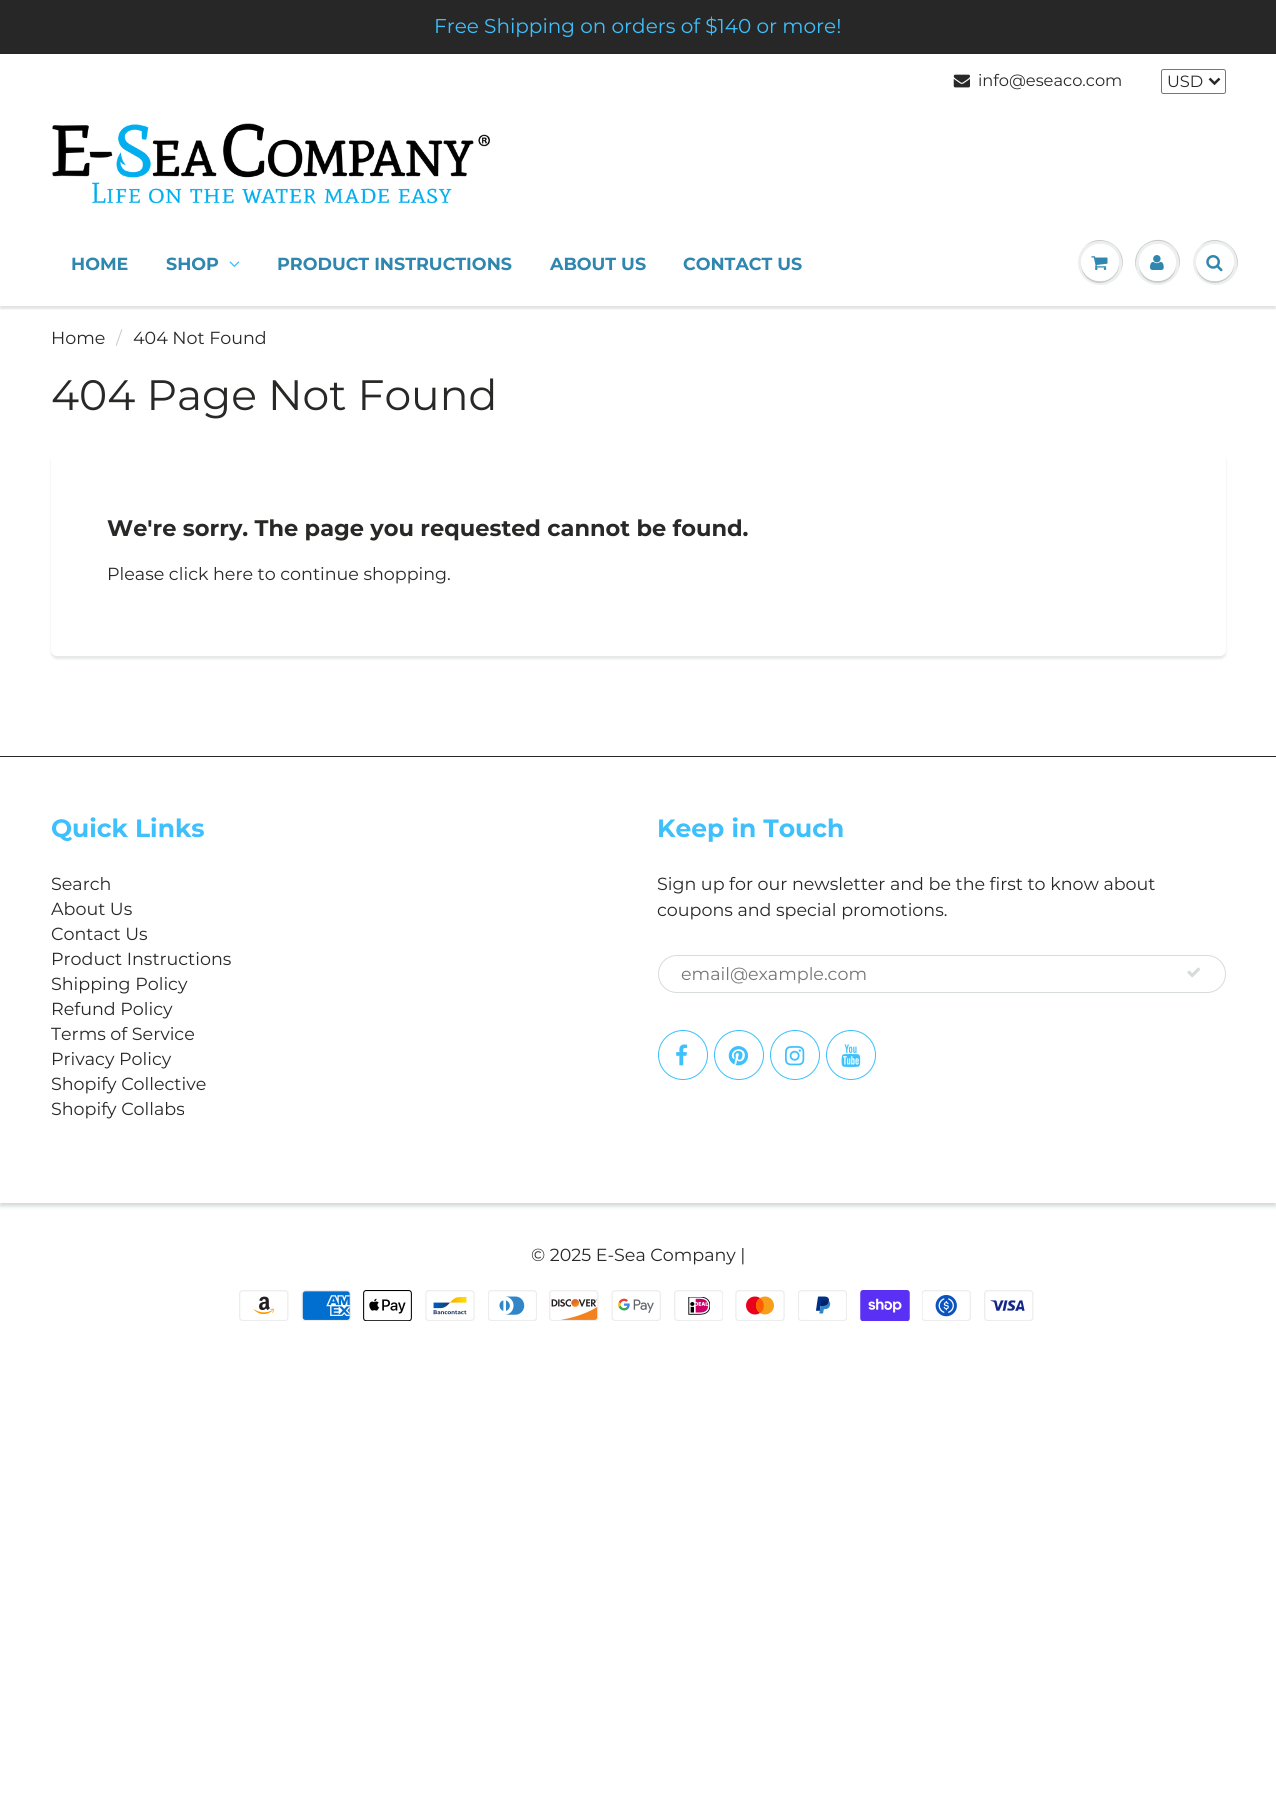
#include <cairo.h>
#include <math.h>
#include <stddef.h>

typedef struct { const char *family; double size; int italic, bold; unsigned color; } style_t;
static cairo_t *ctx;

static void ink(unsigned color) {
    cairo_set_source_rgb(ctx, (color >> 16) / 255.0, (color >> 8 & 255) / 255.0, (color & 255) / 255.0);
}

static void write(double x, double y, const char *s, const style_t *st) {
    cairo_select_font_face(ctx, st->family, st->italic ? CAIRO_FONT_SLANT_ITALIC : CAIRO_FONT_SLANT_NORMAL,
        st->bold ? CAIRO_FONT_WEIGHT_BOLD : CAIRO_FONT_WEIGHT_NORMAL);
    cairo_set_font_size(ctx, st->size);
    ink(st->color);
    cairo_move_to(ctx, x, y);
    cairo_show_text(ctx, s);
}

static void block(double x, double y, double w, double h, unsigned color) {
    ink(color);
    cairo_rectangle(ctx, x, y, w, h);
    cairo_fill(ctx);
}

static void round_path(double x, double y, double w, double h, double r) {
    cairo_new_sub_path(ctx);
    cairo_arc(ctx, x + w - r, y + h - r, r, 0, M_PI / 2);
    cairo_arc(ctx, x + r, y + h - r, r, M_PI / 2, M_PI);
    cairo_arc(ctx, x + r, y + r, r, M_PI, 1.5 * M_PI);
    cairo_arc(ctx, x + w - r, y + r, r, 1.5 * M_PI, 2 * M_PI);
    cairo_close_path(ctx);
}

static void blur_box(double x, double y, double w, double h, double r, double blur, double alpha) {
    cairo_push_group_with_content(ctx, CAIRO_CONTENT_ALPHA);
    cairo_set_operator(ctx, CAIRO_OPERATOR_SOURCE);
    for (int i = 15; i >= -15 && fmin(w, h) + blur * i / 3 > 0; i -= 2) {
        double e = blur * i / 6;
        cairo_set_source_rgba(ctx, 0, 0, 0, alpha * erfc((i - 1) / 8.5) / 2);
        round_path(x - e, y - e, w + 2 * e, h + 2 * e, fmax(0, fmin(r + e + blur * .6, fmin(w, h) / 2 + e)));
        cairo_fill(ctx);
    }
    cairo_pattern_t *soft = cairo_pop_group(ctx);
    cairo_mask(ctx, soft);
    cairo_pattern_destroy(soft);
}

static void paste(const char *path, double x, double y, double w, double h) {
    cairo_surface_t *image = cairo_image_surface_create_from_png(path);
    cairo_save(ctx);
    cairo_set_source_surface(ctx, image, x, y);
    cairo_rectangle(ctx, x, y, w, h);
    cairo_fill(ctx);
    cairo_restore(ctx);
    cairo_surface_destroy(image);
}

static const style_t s1 = {"Montserrat", 20, 0, 0, 0x3dc0fc};
static const style_t s2 = {"Montserrat", 16.25, 0, 0, 0x282827};
static const style_t s3 = {"Montserrat", 17.5, 0, 1, 0x2f86ae};
static const style_t s4 = {"Montserrat", 17.5, 0, 0, 0x282827};
static const style_t s5 = {"Montserrat", 17.5, 0, 0, 0xcccccc};
static const style_t s6 = {"Montserrat", 42.5, 0, 0, 0x282827};
static const style_t s7 = {"Montserrat", 22.5, 0, 1, 0x282827};
static const style_t s8 = {"Montserrat", 25, 0, 1, 0x3dc0fc};
static const style_t s9 = {"Montserrat", 17.5, 0, 0, 0x757575};

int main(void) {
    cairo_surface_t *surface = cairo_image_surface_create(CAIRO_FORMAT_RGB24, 1276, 1816);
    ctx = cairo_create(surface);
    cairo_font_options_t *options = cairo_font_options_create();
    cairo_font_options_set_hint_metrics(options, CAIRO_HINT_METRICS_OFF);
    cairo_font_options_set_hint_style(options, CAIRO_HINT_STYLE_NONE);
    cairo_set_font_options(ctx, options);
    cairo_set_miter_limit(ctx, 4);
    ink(0xffffff);
    cairo_paint(ctx);
    block(0, 0, 1276, 54, 0x282727);
    write(434, 33, "Free Shipping on orders of $140 or more!", &s1);
    paste("pic1.png", 953, 74, 17, 14);
    write(978, 86, "info@eseaco.com", &s2);
    round_path(1161.5, 69.5, 64, 24, 2);
    ink(0x767676);
    cairo_set_line_width(ctx, 1);
    cairo_stroke(ctx);
    cairo_new_path(ctx);
    cairo_move_to(ctx, 1209.5, 78.5);
    cairo_line_to(ctx, 1214.5, 83.5);
    cairo_line_to(ctx, 1219.5, 78.5);
    ink(0x282827);
    cairo_set_line_width(ctx, 2.5);
    cairo_stroke(ctx);
    write(1167, 87, "USD", &s2);
    cairo_save(ctx);
    cairo_rectangle(ctx, 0, 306, 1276, 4);
    cairo_clip(ctx);
    ink(0x0b191c);
    blur_box(0, 111, 1276, 198, 0, 1, 0.12);
    cairo_restore(ctx);
    paste("pic2.png", 52, 123, 438, 81);
    write(71, 270, "HOME", &s3);
    write(166, 270, "SHOP", &s3);
    paste("pic3.png", 229, 261, 11, 6);
    write(277, 270, "PRODUCT INSTRUCTIONS", &s3);
    write(550, 270, "ABOUT US", &s3);
    write(683, 270, "CONTACT US", &s3);
    ink(0xedefef);
    cairo_new_path(ctx);
    cairo_arc(ctx, 1100.5, 262.5, 22.5, 0, 2 * M_PI);
    cairo_fill(ctx);
    ink(0xc9cbcb);
    cairo_new_path(ctx);
    cairo_move_to(ctx, 1100, 241);
    cairo_curve_to(ctx, 1118, 241, 1125, 258, 1121, 271);
    cairo_curve_to(ctx, 1130, 249, 1102, 230, 1085, 246);
    cairo_curve_to(ctx, 1089, 243, 1094, 241, 1100, 241);
    cairo_close_path(ctx);
    cairo_fill(ctx);
    cairo_new_path(ctx);
    cairo_move_to(ctx, 1081.5, 260);
    cairo_curve_to(ctx, 1080.5, 265, 1081.5, 270.5, 1084, 274.5);
    cairo_curve_to(ctx, 1096, 292, 1123, 280, 1118.5, 260);
    cairo_curve_to(ctx, 1119, 264.5, 1118, 269, 1115.5, 273);
    cairo_curve_to(ctx, 1104.5, 289.5, 1079, 279.5, 1081.5, 260);
    cairo_close_path(ctx);
    cairo_fill(ctx);
    ink(0xffffff);
    round_path(1081, 244, 38, 37, 18.5);
    cairo_fill(ctx);
    cairo_new_path(ctx);
    cairo_move_to(ctx, 1100, 245);
    cairo_curve_to(ctx, 1114, 245, 1120, 257, 1118, 267);
    cairo_curve_to(ctx, 1120, 262, 1119, 256, 1116, 252);
    cairo_curve_to(ctx, 1104, 235, 1077, 247, 1082, 267);
    cairo_curve_to(ctx, 1080, 257, 1086, 245, 1100, 245);
    cairo_close_path(ctx);
    cairo_fill(ctx);
    paste("pic4.png", 1091, 256, 17, 14);
    ink(0xedefef);
    cairo_arc(ctx, 1157.5, 262.5, 22.5, 0, 2 * M_PI);
    cairo_fill(ctx);
    ink(0xc9cbcb);
    cairo_new_path(ctx);
    cairo_move_to(ctx, 1158, 241);
    cairo_curve_to(ctx, 1174, 241, 1181, 255, 1179, 268);
    cairo_curve_to(ctx, 1181, 262, 1180, 255, 1176, 250);
    cairo_curve_to(ctx, 1161, 227, 1127, 247, 1137, 271);
    cairo_curve_to(ctx, 1133, 258, 1140, 241, 1158, 241);
    cairo_close_path(ctx);
    cairo_fill(ctx);
    cairo_new_path(ctx);
    cairo_move_to(ctx, 1139, 266);
    cairo_curve_to(ctx, 1140.5, 288.5, 1174.5, 288.5, 1176, 266);
    cairo_curve_to(ctx, 1172.5, 286, 1142.5, 286, 1139, 266);
    cairo_close_path(ctx);
    cairo_fill(ctx);
    ink(0xffffff);
    cairo_arc(ctx, 1157.5, 262.5, 18.5, 0, 2 * M_PI);
    cairo_fill(ctx);
    cairo_new_path(ctx);
    cairo_move_to(ctx, 1158, 245);
    cairo_curve_to(ctx, 1170, 245, 1176, 254, 1176, 263);
    cairo_curve_to(ctx, 1176, 259, 1175, 255.5, 1173, 252);
    cairo_curve_to(ctx, 1161, 235, 1134.5, 247.5, 1139.5, 267);
    cairo_curve_to(ctx, 1138, 256.5, 1144, 245, 1158, 245);
    cairo_close_path(ctx);
    cairo_fill(ctx);
    paste("pic5.png", 1150, 255, 14, 15);
    ink(0xedefef);
    cairo_arc(ctx, 1215.5, 262.5, 22.5, 0, 2 * M_PI);
    cairo_fill(ctx);
    ink(0xc9cbcb);
    cairo_new_path(ctx);
    cairo_move_to(ctx, 1215, 241);
    cairo_curve_to(ctx, 1233, 241, 1240, 258, 1236, 271);
    cairo_curve_to(ctx, 1245, 249, 1217, 230, 1200, 246);
    cairo_curve_to(ctx, 1204, 243, 1209, 241, 1215, 241);
    cairo_close_path(ctx);
    cairo_fill(ctx);
    cairo_new_path(ctx);
    cairo_move_to(ctx, 1196.5, 260);
    cairo_curve_to(ctx, 1195.5, 265, 1196.5, 270.5, 1199, 274.5);
    cairo_curve_to(ctx, 1211, 292, 1238, 280, 1233.5, 260);
    cairo_curve_to(ctx, 1236, 279.5, 1210.5, 289.5, 1199.5, 273);
    cairo_curve_to(ctx, 1197, 269, 1196, 264.5, 1196.5, 260);
    cairo_close_path(ctx);
    cairo_fill(ctx);
    ink(0xffffff);
    round_path(1196, 244, 38, 37, 18.5);
    cairo_fill(ctx);
    cairo_new_path(ctx);
    cairo_move_to(ctx, 1215, 245);
    cairo_curve_to(ctx, 1229, 245, 1235, 257, 1233, 267);
    cairo_curve_to(ctx, 1235, 262, 1234, 256, 1231, 252);
    cairo_curve_to(ctx, 1219, 235, 1192, 247, 1197, 267);
    cairo_curve_to(ctx, 1195, 257, 1201, 245, 1215, 245);
    cairo_close_path(ctx);
    cairo_fill(ctx);
    paste("pic6.png", 1206, 255, 17, 17);
    write(51, 344, "Home", &s4);
    write(116, 344, "/", &s5);
    write(133, 344, "404 Not Found", &s4);
    write(51, 410, "404 Page Not Found", &s6);
    ink(0x0b191c);
    blur_box(51, 455, 1175, 204, 6, 1, 0.1);
    ink(0xffffff);
    round_path(51, 453, 1175, 203, 6);
    cairo_fill(ctx);
    write(107, 536, "We're sorry. The page you requested cannot be found.", &s7);
    write(107, 580, "Please click here to continue shopping.", &s4);
    ink(0xd1d7d7);
    blur_box(0, 760, 1276, 446, 0, 2, 1);
    block(0, 757, 1276, 446, 0xffffff);
    block(0, 756, 1276, 1, 0x282827);
    write(51, 837, "Quick Links", &s8);
    write(51, 890, "Search", &s4);
    write(51, 915, "About Us", &s4);
    write(51, 940, "Contact Us", &s4);
    write(51, 965, "Product Instructions", &s4);
    write(51, 990, "Shipping Policy", &s4);
    write(51, 1015, "Refund Policy", &s4);
    write(51, 1040, "Terms of Service", &s4);
    write(51, 1065, "Privacy Policy", &s4);
    write(51, 1090, "Shopify Collective", &s4);
    write(51, 1115, "Shopify Collabs", &s4);
    write(657, 837, "Keep in Touch", &s8);
    write(657, 890, "Sign up for our newsletter and be the first to know about", &s4);
    write(657, 916, "coupons and special promotions.", &s4);
    round_path(658.5, 955.5, 567, 37, 18.5);
    ink(0xd7dbdb);
    cairo_set_line_width(ctx, 1);
    cairo_stroke(ctx);
    write(681, 980, "email@example.com", &s9);
    paste("pic7.png", 1187, 967, 14, 11);
    cairo_arc(ctx, 683, 1055, 24.5, 0, 2 * M_PI);
    ink(0x3dc0fc);
    cairo_stroke(ctx);
    paste("pic8.png", 676, 1044, 12, 22);
    cairo_arc(ctx, 739, 1055, 24.5, 0, 2 * M_PI);
    cairo_stroke(ctx);
    paste("pic9.png", 728, 1046, 20, 20);
    cairo_arc(ctx, 795, 1055, 24.5, 0, 2 * M_PI);
    cairo_stroke(ctx);
    paste("pic10.png", 785, 1046, 20, 20);
    cairo_arc(ctx, 851, 1055, 24.5, 0, 2 * M_PI);
    cairo_stroke(ctx);
    paste("pic11.png", 841, 1044, 20, 23);
    write(531, 1261, "© 2025 E-Sea Company |", &s4);
    paste("pic12.png", 239, 1290, 50, 31);
    paste("pic13.png", 301, 1290, 50, 31);
    paste("pic14.png", 363, 1290, 49, 31);
    paste("pic15.png", 425, 1290, 50, 31);
    paste("pic16.png", 488, 1290, 49, 31);
    paste("pic17.png", 549, 1290, 50, 31);
    paste("pic18.png", 611, 1290, 50, 31);
    paste("pic19.png", 674, 1290, 49, 31);
    paste("pic20.png", 735, 1290, 50, 31);
    paste("pic21.png", 798, 1290, 49, 31);
    paste("pic22.png", 860, 1290, 50, 31);
    paste("pic23.png", 922, 1290, 49, 31);
    paste("pic24.png", 984, 1290, 50, 31);
    cairo_surface_write_to_png(surface, "screenshot.png");
    cairo_font_options_destroy(options);
    cairo_destroy(ctx);
    cairo_surface_destroy(surface);
    return 0;
}
